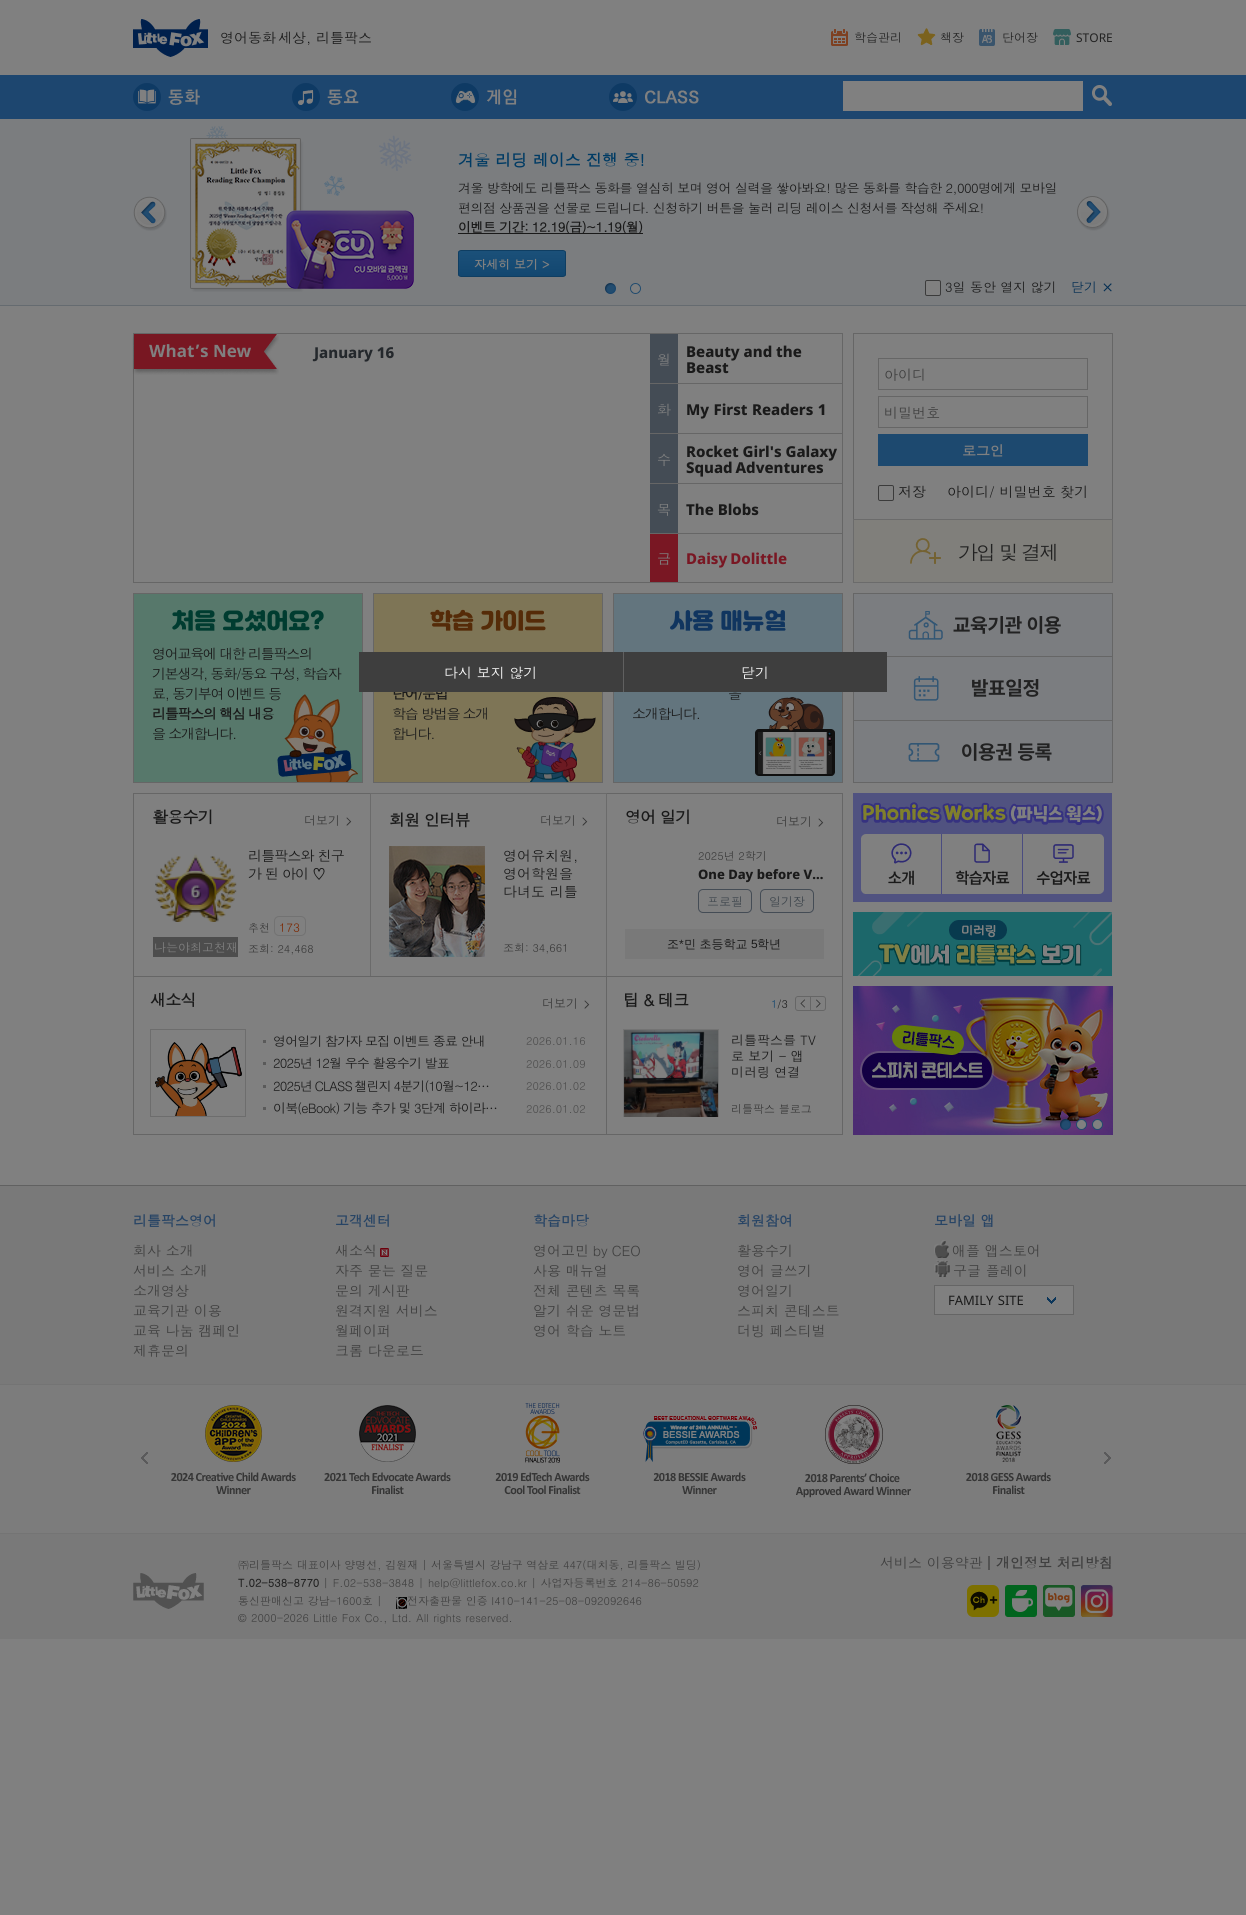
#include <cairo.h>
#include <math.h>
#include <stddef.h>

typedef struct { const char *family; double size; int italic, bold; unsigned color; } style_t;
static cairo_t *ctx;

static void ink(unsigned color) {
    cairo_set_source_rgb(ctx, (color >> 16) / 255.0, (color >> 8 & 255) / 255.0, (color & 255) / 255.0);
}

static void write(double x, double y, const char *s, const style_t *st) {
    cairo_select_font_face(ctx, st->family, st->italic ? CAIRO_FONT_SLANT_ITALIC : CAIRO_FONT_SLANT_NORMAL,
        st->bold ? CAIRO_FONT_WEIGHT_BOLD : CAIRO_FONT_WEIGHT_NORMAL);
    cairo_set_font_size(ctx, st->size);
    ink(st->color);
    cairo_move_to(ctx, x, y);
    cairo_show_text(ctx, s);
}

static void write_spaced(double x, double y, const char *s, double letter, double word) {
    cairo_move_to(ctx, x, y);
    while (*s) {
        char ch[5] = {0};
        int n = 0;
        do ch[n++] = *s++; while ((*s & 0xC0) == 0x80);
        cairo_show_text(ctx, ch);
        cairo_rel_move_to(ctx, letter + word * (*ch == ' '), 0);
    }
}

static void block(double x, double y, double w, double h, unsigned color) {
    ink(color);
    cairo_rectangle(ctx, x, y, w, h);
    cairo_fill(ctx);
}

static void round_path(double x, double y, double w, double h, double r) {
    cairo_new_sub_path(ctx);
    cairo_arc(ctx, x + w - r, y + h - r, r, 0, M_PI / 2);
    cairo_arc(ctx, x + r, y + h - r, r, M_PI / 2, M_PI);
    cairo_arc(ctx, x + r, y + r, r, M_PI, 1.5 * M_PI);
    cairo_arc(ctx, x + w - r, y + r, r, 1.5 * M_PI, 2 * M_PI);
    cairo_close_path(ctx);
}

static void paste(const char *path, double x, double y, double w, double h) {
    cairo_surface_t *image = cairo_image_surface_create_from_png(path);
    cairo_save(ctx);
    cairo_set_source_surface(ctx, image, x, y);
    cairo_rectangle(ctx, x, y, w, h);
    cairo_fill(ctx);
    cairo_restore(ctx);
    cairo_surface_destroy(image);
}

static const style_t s1 = {"Dotum", 14, 0, 0, 0x1a1a1a};
static const style_t s2 = {"Dotum", 12, 0, 0, 0x222222};
static const style_t s3 = {"Noto Sans", 12, 0, 0, 0x222222};
static const style_t s4 = {"Dotum", 16, 0, 1, 0x003b64};
static const style_t s5 = {"Dotum", 12, 0, 1, 0x808080};
static const style_t s6 = {"Dotum", 13, 0, 0, 0x1a1a1a};
static const style_t s7 = {"Dotum", 13, 0, 0, 0x052f53};
static const style_t s8 = {"Dotum", 13, 0, 1, 0x052f53};
static const style_t s9 = {"Noto Sans ExtraBold", 15, 0, 0, 0x24282c};
static const style_t s10 = {"Dotum", 14, 0, 0, 0x808080};
static const style_t s11 = {"Noto Sans ExtraBold", 15, 0, 0, 0x1a1a1a};
static const style_t s12 = {"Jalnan", 22, 0, 1, 0x003c30};
static const style_t s13 = {"Jalnan", 22, 0, 1, 0x552b08};
static const style_t s14 = {"Jalnan", 22, 0, 1, 0x10355f};
static const style_t s15 = {"Dotum", 12, 0, 0, 0x393939};
static const style_t s16 = {"Dotum", 12, 0, 0, 0x808080};
static const style_t s17 = {"Dotum", 11, 0, 0, 0x393939};
static const style_t s18 = {"Dotum", 12, 0, 0, 0x7d2801};
static const style_t s19 = {"Noto Sans ExtraBold", 13, 0, 0, 0x1a1a1a};
static const style_t s20 = {"Dotum", 12, 0, 0, 0x3c444b};
static const style_t s21 = {"WenQuanYi Zen Hei Medium", 12, 0, 0, 0x1a1a1a};
static const style_t s22 = {"Liberation Sans", 12, 0, 0, 0x1a1a1a};
static const style_t s23 = {"Dotum", 11, 0, 0, 0x4d4d4d};
static const style_t s24 = {"Dotum", 11, 0, 0, 0x12476f};
static const style_t s25 = {"Dotum", 11, 0, 0, 0x1a1a1a};
static const style_t s26 = {"Dotum", 14, 0, 0, 0x3f3f3f};
static const style_t s27 = {"Dotum", 14, 0, 1, 0x808080};
static const style_t s28 = {"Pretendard", 20, 0, 1, 0x222222};
static const style_t s29 = {"Dotum", 14, 0, 0, 0xffffff};
static const style_t s30 = {"Dotum", 14, 0, 1, 0x274465};
static const style_t s31 = {"Dotum", 11, 0, 0, 0x3f3f3f};
static const style_t s32 = {"Dotum", 11, 0, 1, 0x222222};
static const style_t s33 = {"Dotum", 14, 0, 1, 0x3f3f3f};

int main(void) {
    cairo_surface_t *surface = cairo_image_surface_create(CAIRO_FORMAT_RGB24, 1246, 1915);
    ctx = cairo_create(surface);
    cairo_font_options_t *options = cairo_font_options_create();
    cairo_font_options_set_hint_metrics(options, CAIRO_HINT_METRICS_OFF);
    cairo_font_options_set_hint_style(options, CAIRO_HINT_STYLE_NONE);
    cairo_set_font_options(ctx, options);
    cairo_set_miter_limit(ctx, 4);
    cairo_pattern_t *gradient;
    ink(0x808080);
    cairo_paint(ctx);
    paste("pic1.png", 133, 19, 75, 38);
    write(220, 43, "영어동", &s1);
    write_spaced(262, 43, "화", 2, 0);
    write(278, 43, "세상, 리틀팍스", &s1);
    paste("pic2.png", 831, 29, 17, 17);
    write(854, 42, "학습관리", &s2);
    paste("pic3.png", 917, 28, 19, 18);
    write(940, 42, "책장", &s2);
    paste("pic4.png", 979, 29, 16, 17);
    write(1002, 42, "단어장", &s2);
    paste("pic5.png", 1053, 29, 18, 16);
    write(1076, 42, "STORE", &s3);
    block(0, 75, 1246, 44, 0x1d466f);
    paste("pic6.png", 133, 83, 67, 28);
    paste("pic7.png", 292, 83, 67, 28);
    paste("pic8.png", 451, 83, 66, 28);
    paste("pic9.png", 609, 83, 90, 28);
    block(843, 81, 240, 30, 0x808080);
    paste("pic10.png", 1092, 85, 20, 21);
    block(0, 119, 1246, 186, 0x7b7d7f);
    block(0, 305, 1246, 1, 0x656b70);
    paste("pic11.png", 133, 196, 34, 35);
    paste("pic12.png", 190, 126, 224, 166);
    write(458, 166, "겨울 리딩 레이스 진행 중!", &s4);
    cairo_select_font_face(ctx, "Dotum", CAIRO_FONT_SLANT_NORMAL, CAIRO_FONT_WEIGHT_NORMAL);
    cairo_set_font_size(ctx, 13);
    ink(0x1a1a1a);
    write_spaced(458, 193, "겨울 방학에도 리틀팍스 동화를 열심히 보며 영어 실력을 쌓아봐요! 많은 동화를 학습한 2,000명에게 모바일", -0.5, 0);
    write_spaced(458, 213, "편의점 상품권을 선물로 드립니다. 신청하기 버튼을 눌러 리딩 레이스 신청서를 작성해 주세요!", -0.5, 0);
    block(458, 233, 185, 1, 0x1a1a1a);
    cairo_select_font_face(ctx, "Dotum", CAIRO_FONT_SLANT_NORMAL, CAIRO_FONT_WEIGHT_BOLD);
    write_spaced(458, 232, "이벤트 기간: 12.19(금)~1.19(월)", -0.5, 0);
    cairo_save(ctx);
    round_path(458, 250, 108, 27, 3);
    cairo_clip(ctx);
    gradient = cairo_pattern_create_linear(512, 251, 512, 276);
    cairo_pattern_add_color_stop_rgba(gradient, 0, 0.106, 0.314, 0.475, 1);
    cairo_pattern_add_color_stop_rgba(gradient, 1, 0.071, 0.278, 0.439, 1);
    cairo_set_source(ctx, gradient);
    cairo_pattern_destroy(gradient);
    cairo_rectangle(ctx, 458, 251, 108, 25);
    cairo_fill(ctx);
    cairo_restore(ctx);
    round_path(458.5, 250.5, 107, 26, 2.5);
    ink(0x0f3e62);
    cairo_set_line_width(ctx, 1);
    cairo_stroke(ctx);
    write(474, 269, "자세히 보기 >", &s5);
    paste("pic13.png", 1077, 196, 33, 35);
    paste("pic14.png", 605, 283, 11, 11);
    paste("pic15.png", 630, 283, 11, 11);
    round_path(925.5, 280.5, 15, 15, 1.5);
    cairo_fill_preserve(ctx);
    ink(0x3b3b3b);
    cairo_stroke(ctx);
    write(945, 292, "3일 동안 열지 않기", &s6);
    write(1071, 292, "닫기", &s7);
    write(1102, 292, "×", &s8);
    block(133, 333, 710, 1, 0x666666);
    block(842, 333, 1, 250, 0x666666);
    block(133, 333, 1, 250, 0x666666);
    paste("pic16.png", 132, 334, 147, 41);
    block(134, 582, 708, 1, 0x666666);
    write(314, 358, "January 16", &s9);
    block(650, 383, 192, 1, 0x666666);
    block(650, 334, 28, 49, 0x444c55);
    write(657, 365, "월", &s10);
    write(686, 357, "Beauty and the", &s11);
    write(686, 373, "Beast", &s11);
    block(650, 433, 192, 1, 0x666666);
    block(650, 384, 28, 49, 0x444c55);
    write(657, 415, "화", &s10);
    cairo_select_font_face(ctx, "Noto Sans ExtraBold", CAIRO_FONT_SLANT_NORMAL, CAIRO_FONT_WEIGHT_NORMAL);
    cairo_set_font_size(ctx, 15);
    ink(0x1a1a1a);
    write_spaced(686, 415, "My First Readers 1", 0, 0.5);
    block(650, 483, 192, 1, 0x666666);
    block(650, 434, 28, 49, 0x444c55);
    write(657, 465, "수", &s10);
    write(686, 457, "Rocket Girl's Galaxy", &s11);
    write_spaced(686, 473, "Squad Adventures", 0, -1);
    block(650, 533, 192, 1, 0x666666);
    block(650, 484, 28, 49, 0x444c55);
    write(657, 515, "목", &s10);
    write(686, 515, "The Blobs", &s11);
    block(650, 534, 28, 48, 0x791723);
    write(657, 564, "금", &s10);
    cairo_select_font_face(ctx, "Noto Sans ExtraBold", CAIRO_FONT_SLANT_NORMAL, CAIRO_FONT_WEIGHT_NORMAL);
    cairo_set_font_size(ctx, 15);
    ink(0x791723);
    write_spaced(686, 564, "Daisy Dolittle", 0, -1);
    block(134, 594, 228, 188, 0x57786b);
    paste("pic17.png", 277, 694, 81, 88);
    cairo_rectangle(ctx, 133.5, 593.5, 229, 189);
    ink(0x666666);
    cairo_stroke(ctx);
    write(172, 629, "처음 오셨어요?", &s12);
    cairo_select_font_face(ctx, "Dotum", CAIRO_FONT_SLANT_NORMAL, CAIRO_FONT_WEIGHT_NORMAL);
    cairo_set_font_size(ctx, 14);
    ink(0x1a1a1a);
    write_spaced(152, 659, "영어교육에 대한 리틀팍스의", -1.25, 0);
    write_spaced(152, 679, "기본생각, 동화/동요 구성, 학습자", -1.25, 0);
    write_spaced(152, 699, "료, 동기부여 이벤트 등", -1.25, 0);
    cairo_select_font_face(ctx, "Dotum", CAIRO_FONT_SLANT_NORMAL, CAIRO_FONT_WEIGHT_BOLD);
    write_spaced(152, 719, "리틀팍스의 핵심 내용", -1.25, 0);
    cairo_select_font_face(ctx, "Dotum", CAIRO_FONT_SLANT_NORMAL, CAIRO_FONT_WEIGHT_NORMAL);
    write_spaced(152, 739, "을 소개합니다.", -1.25, 0);
    block(374, 594, 228, 188, 0x7e7556);
    paste("pic18.png", 514, 697, 82, 85);
    cairo_rectangle(ctx, 373.5, 593.5, 229, 189);
    ink(0x666666);
    cairo_stroke(ctx);
    write(430, 629, "학습 가이드", &s13);
    cairo_select_font_face(ctx, "Dotum", CAIRO_FONT_SLANT_NORMAL, CAIRO_FONT_WEIGHT_BOLD);
    cairo_set_font_size(ctx, 14);
    ink(0x1a1a1a);
    write_spaced(392, 699, "단어/문법", -1.25, 0);
    cairo_select_font_face(ctx, "Dotum", CAIRO_FONT_SLANT_NORMAL, CAIRO_FONT_WEIGHT_NORMAL);
    write_spaced(392, 719, "학습 방법을 소개", -1.25, 0);
    write_spaced(392, 739, "합니다.", -1.25, 0);
    block(614, 594, 228, 188, 0x63757e);
    paste("pic19.png", 755, 697, 80, 79);
    cairo_rectangle(ctx, 613.5, 593.5, 229, 189);
    ink(0x666666);
    cairo_stroke(ctx);
    write(670, 629, "사용 매뉴얼", &s14);
    cairo_select_font_face(ctx, "Dotum", CAIRO_FONT_SLANT_NORMAL, CAIRO_FONT_WEIGHT_NORMAL);
    cairo_set_font_size(ctx, 14);
    ink(0x1a1a1a);
    write_spaced(728, 699, "을", -1.25, 0);
    write_spaced(632, 719, "소개합니다.", -1.25, 0);
    block(133, 793, 237, 1, 0x666666);
    block(133, 793, 1, 183, 0x666666);
    cairo_select_font_face(ctx, "Dotum", CAIRO_FONT_SLANT_NORMAL, CAIRO_FONT_WEIGHT_BOLD);
    cairo_set_font_size(ctx, 16);
    ink(0x1a1a1a);
    write_spaced(152, 823, "활용수기", -0.75, 0);
    write(304, 825, "더보기", &s15);
    paste("pic20.png", 346, 817, 6, 9);
    paste("pic21.png", 155, 854, 82, 68);
    block(153, 937, 85, 20, 0x4d4d4d);
    write(154, 952, "나는야최고천재", &s16);
    cairo_set_font_size(ctx, 14);
    ink(0x1a1a1a);
    write_spaced(248, 861, "리틀팍스와 친구", -0.85, 0);
    write_spaced(248, 879, "가 된 아이 ♡", -0.85, 0);
    write(248, 932, "추천", &s17);
    round_path(274.5, 916.5, 31, 19, 4.5);
    ink(0x727272);
    cairo_stroke(ctx);
    write(279, 932, "173", &s18);
    write(248, 953, "조회: 24,468", &s17);
    block(370, 793, 237, 1, 0x6b6b6b);
    block(606, 793, 1, 183, 0x6b6b6b);
    block(370, 793, 1, 183, 0x6b6b6b);
    cairo_select_font_face(ctx, "Dotum", CAIRO_FONT_SLANT_NORMAL, CAIRO_FONT_WEIGHT_BOLD);
    cairo_set_font_size(ctx, 16);
    ink(0x1a1a1a);
    write_spaced(389, 826, "회원 인터뷰", -0.75, 0);
    write(540, 825, "더보기", &s15);
    paste("pic20.png", 582, 817, 6, 9);
    paste("pic22.png", 389, 846, 96, 111);
    write(503, 861, "영어유치원,", &s1);
    write(503, 879, "영어학원을", &s1);
    write(503, 897, "다녀도 리틀", &s1);
    write(503, 952, "조회: 34,661", &s17);
    block(607, 793, 236, 1, 0x666666);
    block(842, 793, 1, 183, 0x666666);
    cairo_select_font_face(ctx, "Dotum", CAIRO_FONT_SLANT_NORMAL, CAIRO_FONT_WEIGHT_BOLD);
    cairo_set_font_size(ctx, 16);
    ink(0x1a1a1a);
    write_spaced(625, 823, "영어 일기", -0.75, 0);
    write(776, 826, "더보기", &s15);
    paste("pic20.png", 818, 818, 6, 9);
    write(698, 860, "2025년 2학기", &s17);
    write(698, 879, "One Day before V…", &s19);
    round_path(698.5, 889.5, 53, 23, 4.5);
    ink(0x444c55);
    cairo_stroke(ctx);
    write(707, 906, "프로필", &s20);
    round_path(760.5, 889.5, 53, 23, 4.5);
    ink(0x444c55);
    cairo_stroke(ctx);
    write(769, 906, "일기장", &s20);
    block(625, 929, 199, 30, 0x797979);
    write(667, 948, "조", &s21);
    write(679, 948, "*", &s22);
    write(684, 948, "민 초등학교", &s21);
    write(751, 948, "5", &s22);
    write(757, 948, "학년", &s21);
    block(133, 976, 473, 1, 0x666666);
    block(133, 1134, 473, 1, 0x666666);
    block(133, 976, 1, 159, 0x666666);
    cairo_select_font_face(ctx, "Dotum", CAIRO_FONT_SLANT_NORMAL, CAIRO_FONT_WEIGHT_BOLD);
    cairo_set_font_size(ctx, 16);
    ink(0x1a1a1a);
    write_spaced(150, 1006, "새소식", -0.75, 0);
    write(542, 1008, "더보기", &s15);
    paste("pic20.png", 584, 1000, 6, 9);
    paste("pic23.png", 150, 1029, 96, 88);
    block(263, 1040, 3, 3, 0x5a5a5a);
    cairo_set_font_size(ctx, 13);
    ink(0x1a1a1a);
    write_spaced(273, 1046, "영어일기 참가자 모집 이벤트 종료 안내", -0.85, 0);
    write(526, 1045, "2026.01.16", &s23);
    block(263, 1062, 3, 3, 0x5a5a5a);
    cairo_set_font_size(ctx, 13);
    ink(0x1a1a1a);
    write_spaced(273, 1068, "2025년 12월 우수 활용수기 발표", -0.85, 0);
    write(526, 1068, "2026.01.09", &s23);
    block(263, 1085, 3, 3, 0x5a5a5a);
    cairo_set_font_size(ctx, 13);
    ink(0x1a1a1a);
    write_spaced(273, 1091, "2025년 CLASS 챌린지 4분기(10월~12…", -0.85, -1);
    write(526, 1090, "2026.01.02", &s23);
    block(263, 1107, 3, 3, 0x5a5a5a);
    cairo_set_font_size(ctx, 13);
    ink(0x1a1a1a);
    write_spaced(273, 1113, "이북(eBook) 기능 추가 및 3단계 하이라…", -0.85, 0);
    write(526, 1113, "2026.01.02", &s23);
    cairo_rectangle(ctx, 606.5, 976.5, 236, 158);
    ink(0x666666);
    cairo_stroke(ctx);
    cairo_select_font_face(ctx, "Dotum", CAIRO_FONT_SLANT_NORMAL, CAIRO_FONT_WEIGHT_BOLD);
    cairo_set_font_size(ctx, 16);
    ink(0x1a1a1a);
    write_spaced(623, 1006, "팁 & 테크", -0.75, 0);
    write(771, 1008, "1", &s24);
    write(777, 1008, "/3", &s25);
    paste("pic24.png", 795, 996, 15, 15);
    paste("pic25.png", 810, 996, 16, 15);
    cairo_save(ctx);
    cairo_rectangle(ctx, 623, 1029, 200, 88);
    cairo_clip(ctx);
    cairo_rectangle(ctx, 623.5, 1029.5, 95, 90);
    ink(0x737373);
    cairo_stroke(ctx);
    cairo_restore(ctx);
    paste("pic26.png", 624, 1030, 95, 87);
    write(731, 1045, "리틀팍스를 TV", &s6);
    write(731, 1061, "로 보기 - 앱", &s6);
    write(731, 1077, "미러링 연결", &s6);
    write(731, 1113, "리틀팍스 블로그", &s17);
    block(853, 333, 260, 1, 0x666666);
    block(1112, 333, 1, 186, 0x666666);
    block(853, 333, 1, 186, 0x666666);
    cairo_rectangle(ctx, 878.5, 358.5, 209, 31);
    cairo_stroke(ctx);
    write(884, 380, "아이디", &s26);
    cairo_rectangle(ctx, 878.5, 396.5, 209, 31);
    ink(0x666666);
    cairo_stroke(ctx);
    write(884, 418, "비밀번호", &s26);
    block(878, 434, 210, 32, 0x1d496f);
    write(962, 456, "로그인", &s27);
    round_path(878.5, 485.5, 15, 15, 1.5);
    ink(0x3b3b3b);
    cairo_stroke(ctx);
    write(898, 497, "저장", &s1);
    write(947, 497, "아이디/ 비밀번호 찾기", &s1);
    ink(0x807f7b);
    cairo_rectangle(ctx, 853.5, 519.5, 259, 63);
    cairo_fill_preserve(ctx);
    ink(0x6b6b6b);
    cairo_stroke(ctx);
    paste("pic27.png", 910, 538, 31, 26);
    cairo_set_font_size(ctx, 20);
    ink(0x222222);
    write_spaced(958, 560, "가입 및 결제", -2, 0);
    block(854, 594, 258, 62, 0x7b7d80);
    block(853, 593, 260, 1, 0x666666);
    block(1112, 593, 1, 63, 0x666666);
    block(853, 593, 1, 63, 0x666666);
    paste("pic28.png", 908, 611, 35, 29);
    write(953, 632, "교육기관 이용", &s28);
    block(854, 657, 258, 63, 0x7b7d80);
    block(887, 656, 226, 1, 0x666666);
    block(1112, 656, 1, 64, 0x666666);
    block(853, 692, 1, 28, 0x666666);
    paste("pic29.png", 913, 676, 26, 25);
    write(971, 695, "발표일정", &s28);
    ink(0x7b7d80);
    cairo_rectangle(ctx, 853.5, 720.5, 259, 62);
    cairo_fill_preserve(ctx);
    ink(0x666666);
    cairo_stroke(ctx);
    paste("pic30.png", 908, 743, 32, 19);
    write(961, 759, "이용권 등록", &s28);
    paste("pic31.png", 853, 793, 259, 109);
    paste("pic32.png", 853, 912, 259, 64);
    paste("pic33.png", 853, 986, 260, 149);
    paste("pic34.png", 1060, 1119, 11, 11);
    paste("pic35.png", 1076, 1119, 11, 11);
    paste("pic36.png", 1092, 1119, 11, 11);
    block(359, 652, 528, 40, 0x3e3e3e);
    write(444, 678, "다시 보지 않기", &s29);
    block(623, 652, 1, 40, 0x606060);
    write(741, 678, "닫기", &s29);
    block(0, 1186, 1246, 453, 0x797979);
    block(0, 1185, 1246, 1, 0x616161);
    write(133, 1226, "리틀팍스영어", &s30);
    write(133, 1256, "회사 소개", &s26);
    write(133, 1276, "서비스 소개", &s26);
    write(133, 1296, "소개영상", &s26);
    write(133, 1316, "교육기관 이용", &s26);
    write(133, 1336, "교육 나눔 캠페인", &s26);
    write(133, 1356, "제휴문의", &s26);
    write(335, 1226, "고객센터", &s30);
    write(335, 1256, "새소식", &s26);
    paste("pic37.png", 380, 1248, 9, 9);
    write(335, 1276, "자주 묻는 질문", &s26);
    write(335, 1296, "문의 게시판", &s26);
    write(335, 1316, "원격지원 서비스", &s26);
    write(335, 1336, "월페이퍼", &s26);
    write(335, 1356, "크롬 다운로드", &s26);
    write(533, 1226, "학습마당", &s30);
    cairo_select_font_face(ctx, "Dotum", CAIRO_FONT_SLANT_NORMAL, CAIRO_FONT_WEIGHT_NORMAL);
    ink(0x3f3f3f);
    write_spaced(533, 1256, "영어고민 by CEO", 0, -1);
    write(533, 1276, "사용 매뉴얼", &s26);
    write(533, 1296, "전체 콘텐츠 목록", &s26);
    write(533, 1316, "알기 쉬운 영문법", &s26);
    write(533, 1336, "영어 학습 노트", &s26);
    write(737, 1226, "회원참여", &s30);
    write(737, 1256, "활용수기", &s26);
    write(737, 1276, "영어 글쓰기", &s26);
    write(737, 1296, "영어일기", &s26);
    write(737, 1316, "스피치 콘테스트", &s26);
    write(737, 1336, "더빙 페스티벌", &s26);
    write(934, 1226, "모바일 앱", &s30);
    paste("pic38.png", 934, 1240, 15, 18);
    write(952, 1256, "애플 앱스토어", &s26);
    paste("pic39.png", 934, 1260, 16, 17);
    write(953, 1276, "구글 플레이", &s26);
    ink(0x808080);
    cairo_rectangle(ctx, 934.5, 1285.5, 139, 29);
    cairo_fill_preserve(ctx);
    ink(0x656565);
    cairo_stroke(ctx);
    cairo_select_font_face(ctx, "Noto Sans", CAIRO_FONT_SLANT_NORMAL, CAIRO_FONT_WEIGHT_NORMAL);
    cairo_set_font_size(ctx, 13);
    ink(0x1a1a1a);
    write_spaced(948, 1305, "FAMILY SITE", 0, 1);
    paste("pic40.png", 1047, 1297, 9, 7);
    block(0, 1385, 1246, 148, 0x7c7c7c);
    block(0, 1384, 1246, 1, 0x747474);
    block(0, 1533, 1246, 1, 0x747474);
    paste("pic41.png", 141, 1452, 7, 12);
    paste("pic42.png", 171, 1405, 125, 90);
    paste("pic43.png", 324, 1405, 127, 90);
    paste("pic44.png", 495, 1403, 95, 92);
    paste("pic45.png", 643, 1416, 114, 79);
    paste("pic46.png", 796, 1405, 115, 93);
    paste("pic47.png", 966, 1405, 85, 90);
    paste("pic48.png", 1104, 1452, 7, 12);
    paste("pic49.png", 133, 1573, 71, 36);
    write(238, 1569, "㈜리틀팍스 대표이사 양명선, 김원재 | 서울특별시 강남구 역삼로 447(대치동, 리틀팍스 빌딩)", &s31);
    write(238, 1587, "T.02-538-8770", &s32);
    cairo_select_font_face(ctx, "Dotum", CAIRO_FONT_SLANT_NORMAL, CAIRO_FONT_WEIGHT_NORMAL);
    ink(0x3f3f3f);
    write_spaced(323, 1587, "| F.02-538-3848 | help@littlefox.co.kr | 사업자등록번호 214-86-50592", 0, 0.5);
    write(238, 1605, "통신판매신고 강남-1600호 |", &s31);
    paste("pic50.png", 396, 1597, 11, 12);
    write(407, 1605, "전자출판물 인증 I410-141-25-08-092092646", &s31);
    write(880, 1568, "서비스 이용약관", &s26);
    write(982, 1568, "│", &s1);
    write(996, 1568, "개인정보 처리방침", &s33);
    paste("pic51.png", 967, 1585, 32, 32);
    paste("pic52.png", 1005, 1585, 32, 32);
    paste("pic53.png", 1043, 1585, 32, 32);
    paste("pic54.png", 1081, 1585, 32, 32);
    cairo_select_font_face(ctx, "Dotum", CAIRO_FONT_SLANT_NORMAL, CAIRO_FONT_WEIGHT_NORMAL);
    cairo_set_font_size(ctx, 11);
    write_spaced(238, 1622, "© 2000-2026 Little Fox Co., Ltd. All rights reserved.", 0, 0.75);
    cairo_surface_write_to_png(surface, "screenshot.png");
    cairo_font_options_destroy(options);
    cairo_destroy(ctx);
    cairo_surface_destroy(surface);
    return 0;
}
